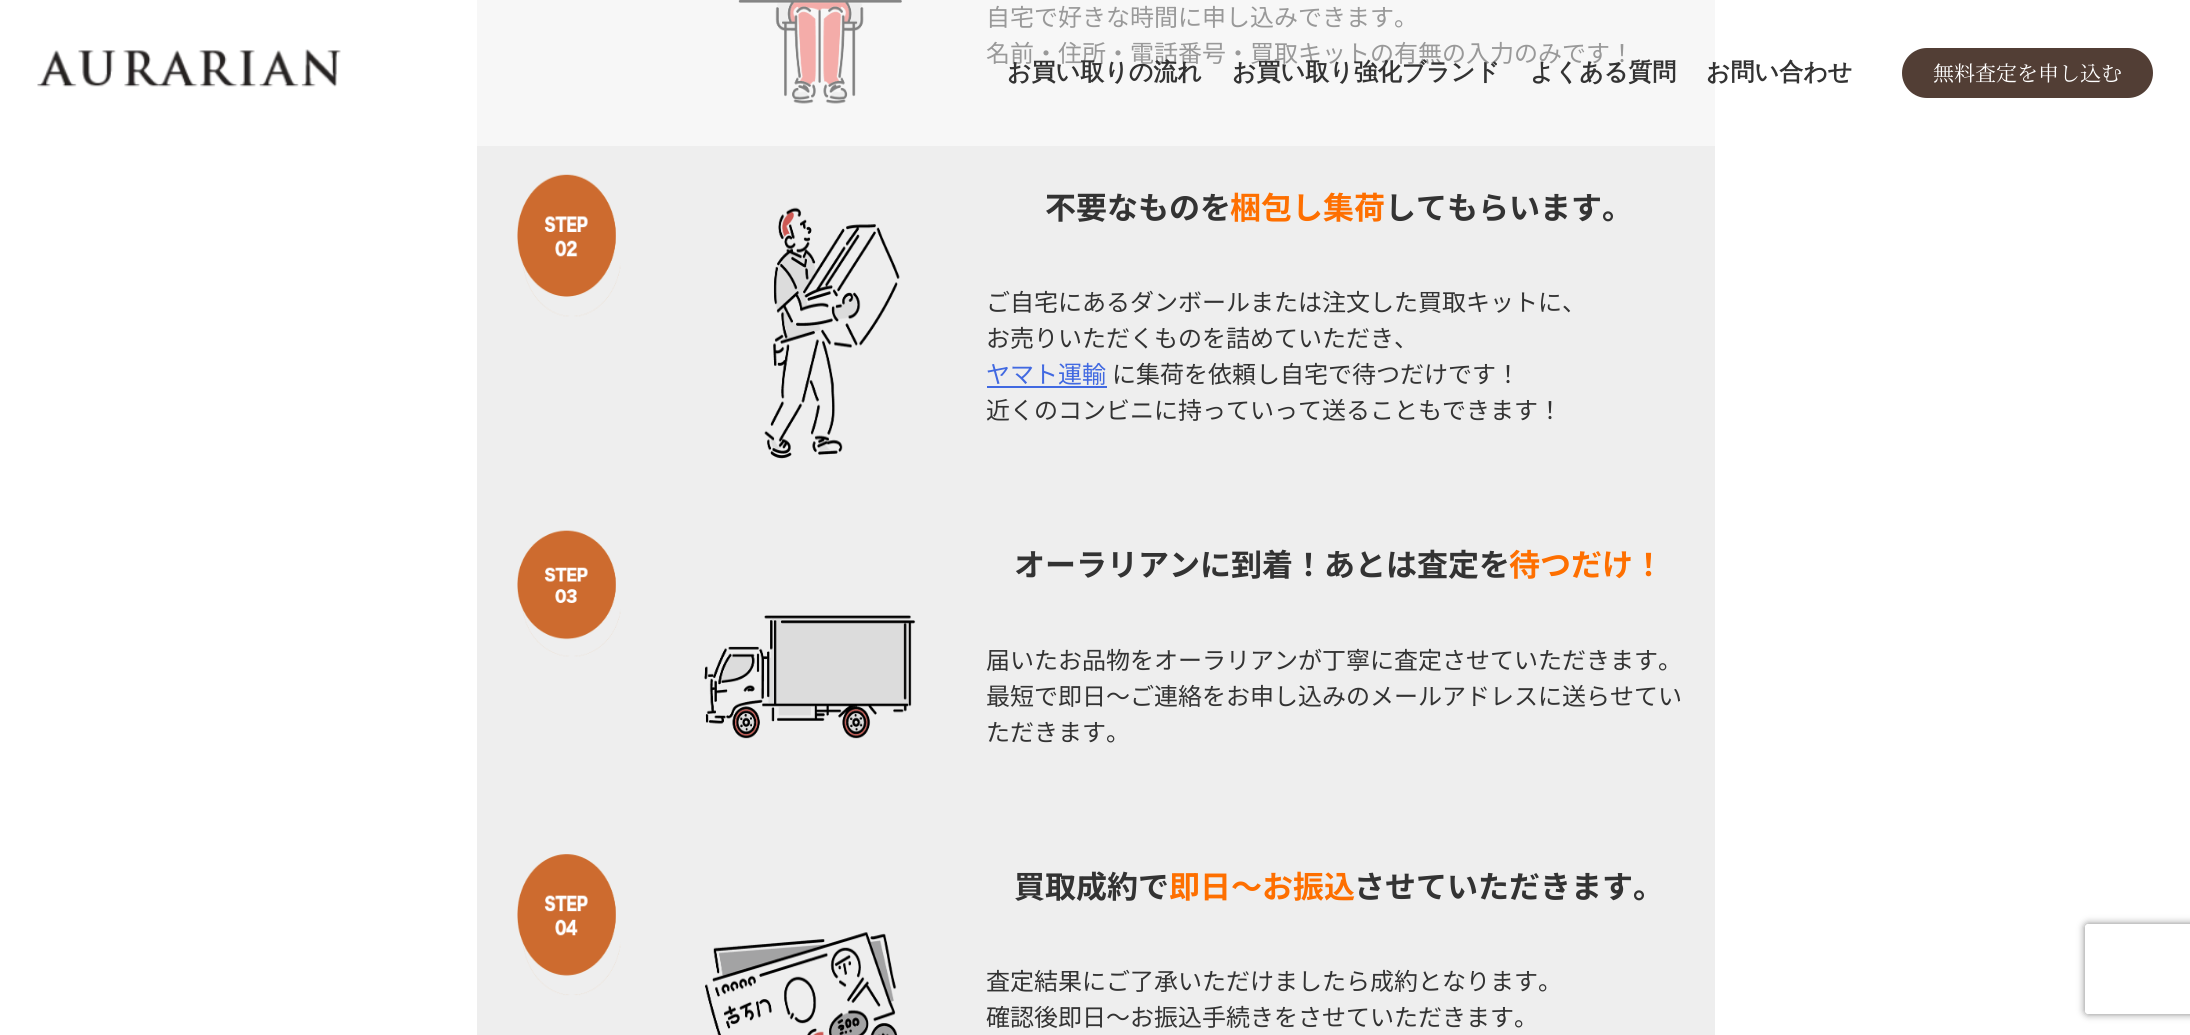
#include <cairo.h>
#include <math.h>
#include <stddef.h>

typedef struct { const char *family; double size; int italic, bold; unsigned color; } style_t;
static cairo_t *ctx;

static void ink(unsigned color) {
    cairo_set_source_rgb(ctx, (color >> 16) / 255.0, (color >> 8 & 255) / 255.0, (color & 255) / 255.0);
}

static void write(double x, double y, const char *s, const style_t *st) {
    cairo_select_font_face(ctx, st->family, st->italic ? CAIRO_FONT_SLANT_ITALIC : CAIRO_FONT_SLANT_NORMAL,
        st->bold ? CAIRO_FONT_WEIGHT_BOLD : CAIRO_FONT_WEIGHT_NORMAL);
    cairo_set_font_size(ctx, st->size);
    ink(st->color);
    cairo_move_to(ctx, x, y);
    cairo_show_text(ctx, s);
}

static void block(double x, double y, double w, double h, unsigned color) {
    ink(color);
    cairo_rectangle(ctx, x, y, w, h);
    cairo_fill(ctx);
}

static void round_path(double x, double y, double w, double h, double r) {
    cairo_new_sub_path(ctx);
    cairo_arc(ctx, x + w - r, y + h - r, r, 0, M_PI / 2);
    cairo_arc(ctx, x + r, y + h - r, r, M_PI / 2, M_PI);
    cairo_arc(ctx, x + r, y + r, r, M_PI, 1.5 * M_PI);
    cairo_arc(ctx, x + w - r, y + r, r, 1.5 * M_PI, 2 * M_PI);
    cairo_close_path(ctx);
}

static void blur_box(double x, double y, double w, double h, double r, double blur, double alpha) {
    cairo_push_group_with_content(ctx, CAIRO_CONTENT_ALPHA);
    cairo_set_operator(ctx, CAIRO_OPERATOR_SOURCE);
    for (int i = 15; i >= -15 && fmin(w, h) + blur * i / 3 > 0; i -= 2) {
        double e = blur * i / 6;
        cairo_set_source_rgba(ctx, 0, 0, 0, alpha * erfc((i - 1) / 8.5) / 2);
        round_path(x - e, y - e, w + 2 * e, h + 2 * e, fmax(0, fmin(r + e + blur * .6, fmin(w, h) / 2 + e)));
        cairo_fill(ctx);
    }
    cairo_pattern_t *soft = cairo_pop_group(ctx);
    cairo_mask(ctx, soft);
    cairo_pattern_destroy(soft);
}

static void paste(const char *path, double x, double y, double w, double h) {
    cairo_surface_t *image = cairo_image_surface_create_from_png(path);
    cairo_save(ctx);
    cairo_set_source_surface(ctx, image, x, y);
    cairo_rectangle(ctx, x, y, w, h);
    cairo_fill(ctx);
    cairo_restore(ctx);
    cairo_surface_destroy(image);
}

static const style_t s1 = {"Noto Sans JP", 24, 0, 0, 0x999999};
static const style_t s2 = {"Noto Sans JP", 31, 0, 1, 0x333333};
static const style_t s3 = {"Noto Sans JP", 31, 0, 1, 0xfe6f00};
static const style_t s4 = {"Noto Sans JP", 24, 0, 0, 0x333333};
static const style_t s5 = {"Noto Sans JP", 24, 0, 0, 0x4169e1};
static const style_t s6 = {"WenQuanYi Zen Hei", 24, 0, 1, 0x333333};
static const style_t s7 = {"Noto Serif JP", 21, 0, 0, 0xffffff};

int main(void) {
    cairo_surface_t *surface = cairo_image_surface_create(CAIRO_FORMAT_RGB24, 2190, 1035);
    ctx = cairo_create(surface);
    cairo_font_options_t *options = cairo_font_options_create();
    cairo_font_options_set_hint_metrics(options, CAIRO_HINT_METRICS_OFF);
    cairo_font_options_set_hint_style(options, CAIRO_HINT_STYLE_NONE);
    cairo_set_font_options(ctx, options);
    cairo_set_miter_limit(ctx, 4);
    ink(0xffffff);
    cairo_paint(ctx);
    block(477, 146, 1238, 889, 0xeeeeee);
    block(477, 0, 1238, 146, 0xf7f7f7);
    paste("pic1.png", 738, 0, 164, 104);
    write(986, 26, "自宅で好きな時間に申し込みできます。", &s1);
    write(986, 62, "名前・住所・電話番号・買取キットの有無の入力のみです！", &s1);
    paste("pic2.png", 517, 174, 383, 285);
    write(1045, 219, "不要なものを", &s2);
    write(1230, 219, "梱包し集荷", &s3);
    write(1385, 219, "してもらいます。", &s2);
    write(986, 311, "ご自宅にあるダンボールまたは注文した買取キットに、", &s4);
    write(986, 347, "お売りいただくものを詰めていただき、", &s4);
    write(986, 383, "ヤマト運輸", &s5);
    block(987, 386, 120, 2, 0x4169e1);
    write(1112, 383, "に集荷を依頼し自宅で待つだけです！", &s4);
    write(986, 419, "近くのコンビニに持っていって送ることもできます！", &s4);
    paste("pic3.png", 517, 530, 399, 209);
    write(1014, 576, "オーラリアンに到着！あとは査定を", &s2);
    write(1509, 576, "待つだけ！", &s3);
    write(986, 669, "届いたお品物をオーラリアンが丁寧に査定させていただきます。", &s4);
    write(986, 705, "最短で即日〜ご連絡をお申し込みのメールアドレスに送らせてい", &s4);
    write(986, 741, "ただきます。", &s4);
    paste("pic4.png", 517, 854, 381, 181);
    write(1014, 898, "買取成約で", &s2);
    write(1169, 898, "即日〜お振込", &s3);
    write(1354, 898, "させていただきます。", &s2);
    write(986, 990, "査定結果にご了承いただけましたら成約となります。", &s4);
    write(986, 1026, "確認後即日〜お振込手続きをさせていただきます。", &s4);
    paste("pic5.png", 37, 49, 304, 38);
    write(1007, 80, "お買い取りの流れ", &s6);
    write(1232, 80, "お買い取り強化ブランド", &s6);
    write(1530, 80, "よくある質問", &s6);
    write(1706, 80, "お問い合わせ", &s6);
    ink(0x523e35);
    round_path(1902, 48, 251, 50, 25);
    cairo_fill(ctx);
    write(1933, 81, "無料査定を申し込む", &s7);
    cairo_save(ctx);
    cairo_set_fill_rule(ctx, CAIRO_FILL_RULE_EVEN_ODD);
    cairo_new_path(ctx);
    cairo_move_to(ctx, 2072, 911);
    cairo_line_to(ctx, 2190, 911);
    cairo_line_to(ctx, 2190, 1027);
    cairo_line_to(ctx, 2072, 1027);
    cairo_close_path(ctx);
    cairo_move_to(ctx, 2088, 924);
    cairo_line_to(ctx, 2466, 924);
    cairo_curve_to(ctx, 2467.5, 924, 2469, 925.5, 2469, 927);
    cairo_line_to(ctx, 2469, 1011);
    cairo_curve_to(ctx, 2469, 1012.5, 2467.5, 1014, 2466, 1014);
    cairo_line_to(ctx, 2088, 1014);
    cairo_curve_to(ctx, 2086.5, 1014, 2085, 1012.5, 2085, 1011);
    cairo_line_to(ctx, 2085, 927);
    cairo_curve_to(ctx, 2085, 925.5, 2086.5, 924, 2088, 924);
    cairo_close_path(ctx);
    cairo_clip(ctx);
    ink(0x808080);
    blur_box(2085, 924, 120, 90, 3, 4, 1);
    cairo_restore(ctx);
    cairo_surface_write_to_png(surface, "screenshot.png");
    cairo_font_options_destroy(options);
    cairo_destroy(ctx);
    cairo_surface_destroy(surface);
    return 0;
}
